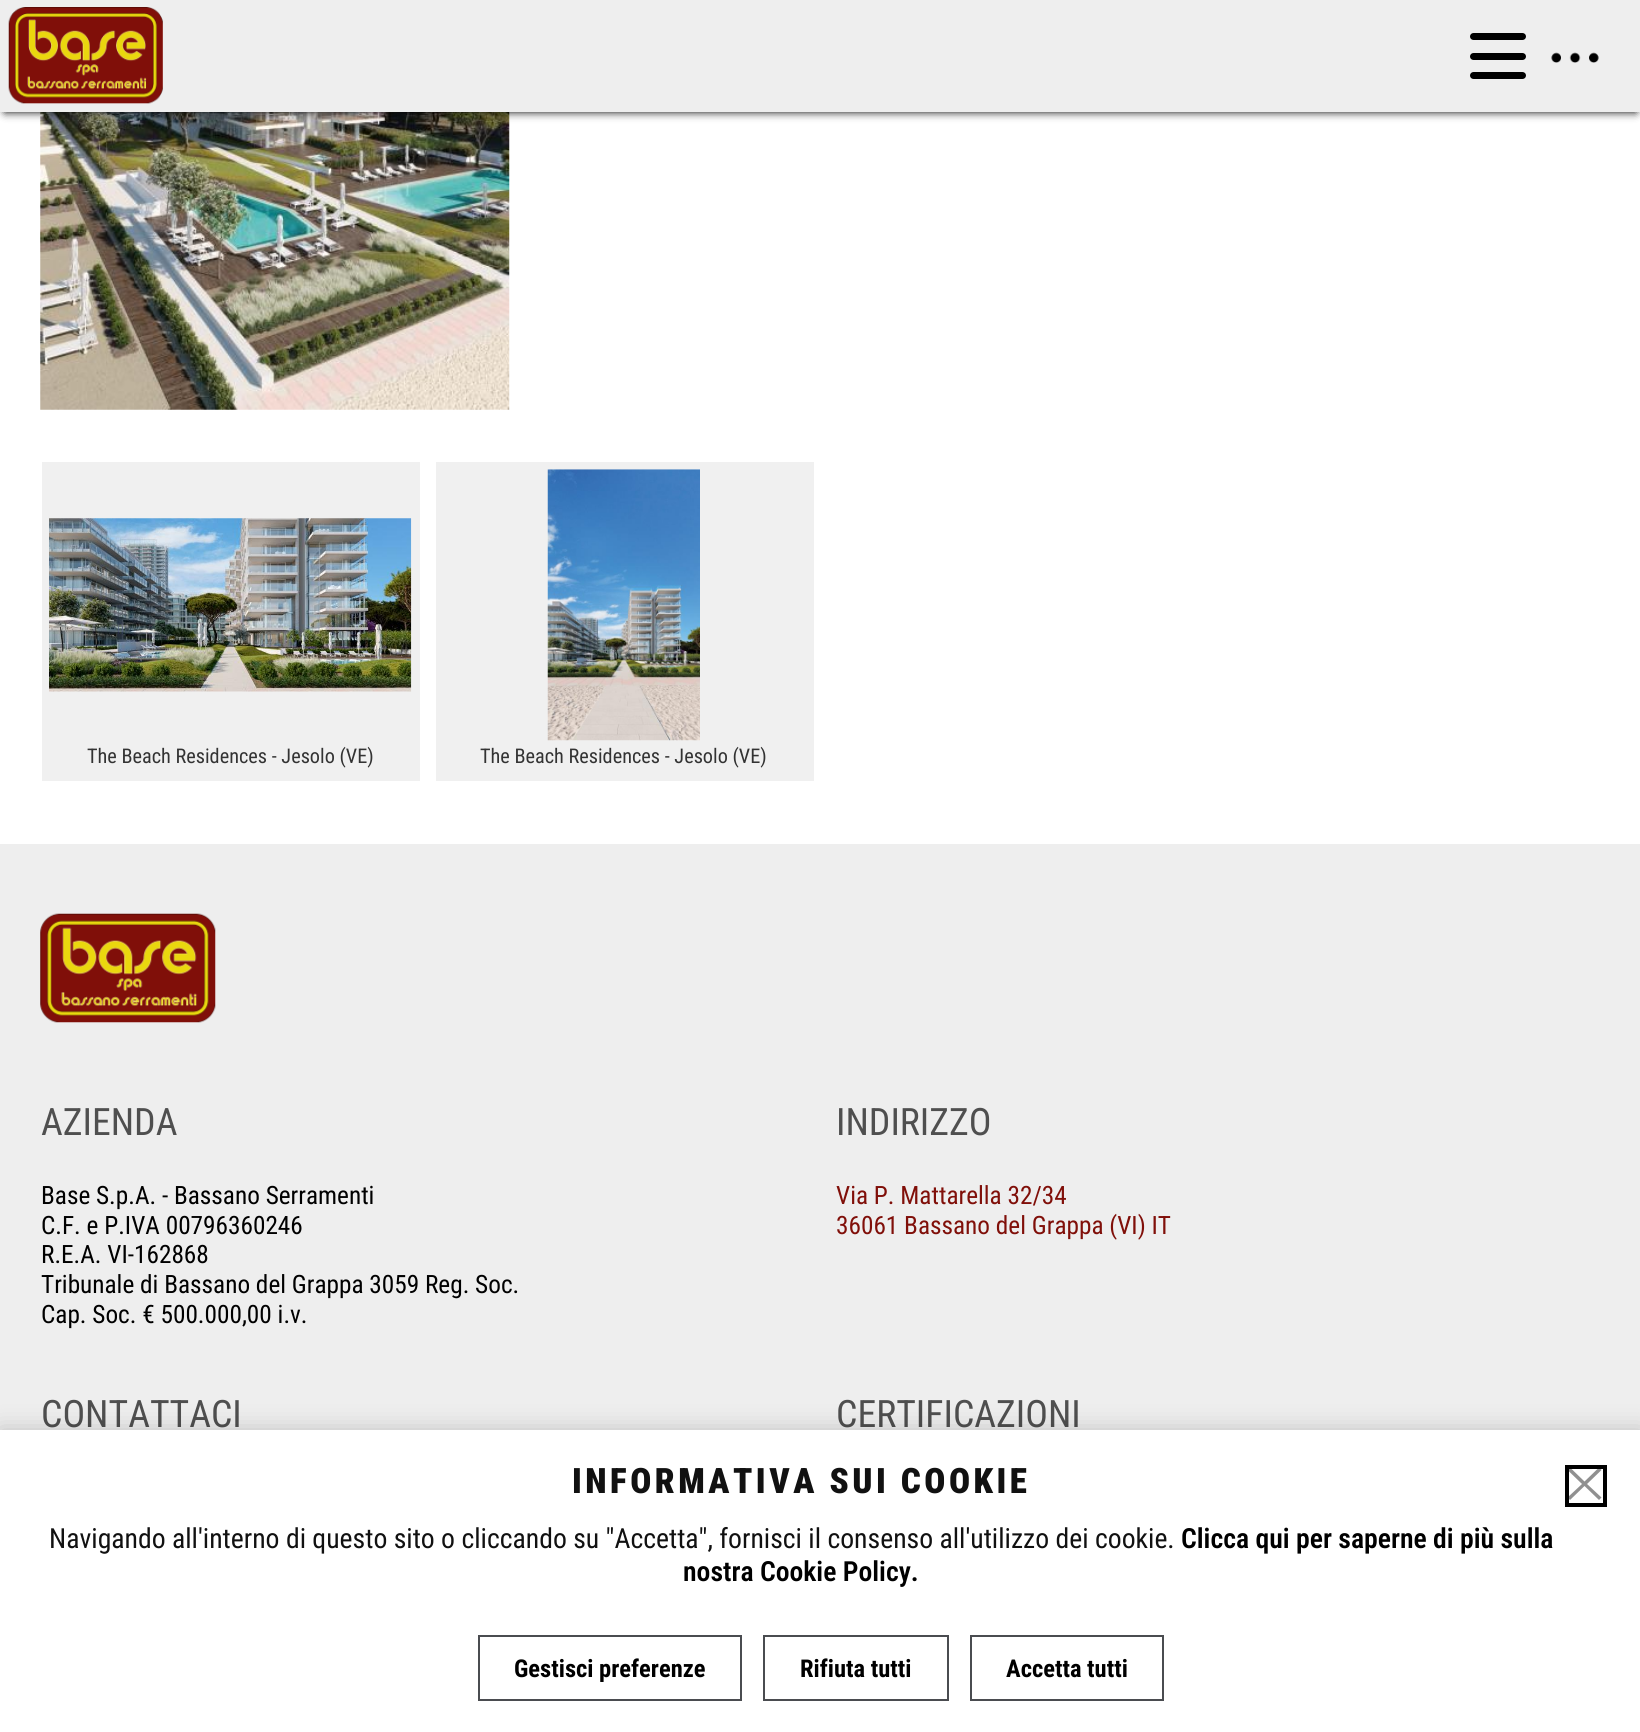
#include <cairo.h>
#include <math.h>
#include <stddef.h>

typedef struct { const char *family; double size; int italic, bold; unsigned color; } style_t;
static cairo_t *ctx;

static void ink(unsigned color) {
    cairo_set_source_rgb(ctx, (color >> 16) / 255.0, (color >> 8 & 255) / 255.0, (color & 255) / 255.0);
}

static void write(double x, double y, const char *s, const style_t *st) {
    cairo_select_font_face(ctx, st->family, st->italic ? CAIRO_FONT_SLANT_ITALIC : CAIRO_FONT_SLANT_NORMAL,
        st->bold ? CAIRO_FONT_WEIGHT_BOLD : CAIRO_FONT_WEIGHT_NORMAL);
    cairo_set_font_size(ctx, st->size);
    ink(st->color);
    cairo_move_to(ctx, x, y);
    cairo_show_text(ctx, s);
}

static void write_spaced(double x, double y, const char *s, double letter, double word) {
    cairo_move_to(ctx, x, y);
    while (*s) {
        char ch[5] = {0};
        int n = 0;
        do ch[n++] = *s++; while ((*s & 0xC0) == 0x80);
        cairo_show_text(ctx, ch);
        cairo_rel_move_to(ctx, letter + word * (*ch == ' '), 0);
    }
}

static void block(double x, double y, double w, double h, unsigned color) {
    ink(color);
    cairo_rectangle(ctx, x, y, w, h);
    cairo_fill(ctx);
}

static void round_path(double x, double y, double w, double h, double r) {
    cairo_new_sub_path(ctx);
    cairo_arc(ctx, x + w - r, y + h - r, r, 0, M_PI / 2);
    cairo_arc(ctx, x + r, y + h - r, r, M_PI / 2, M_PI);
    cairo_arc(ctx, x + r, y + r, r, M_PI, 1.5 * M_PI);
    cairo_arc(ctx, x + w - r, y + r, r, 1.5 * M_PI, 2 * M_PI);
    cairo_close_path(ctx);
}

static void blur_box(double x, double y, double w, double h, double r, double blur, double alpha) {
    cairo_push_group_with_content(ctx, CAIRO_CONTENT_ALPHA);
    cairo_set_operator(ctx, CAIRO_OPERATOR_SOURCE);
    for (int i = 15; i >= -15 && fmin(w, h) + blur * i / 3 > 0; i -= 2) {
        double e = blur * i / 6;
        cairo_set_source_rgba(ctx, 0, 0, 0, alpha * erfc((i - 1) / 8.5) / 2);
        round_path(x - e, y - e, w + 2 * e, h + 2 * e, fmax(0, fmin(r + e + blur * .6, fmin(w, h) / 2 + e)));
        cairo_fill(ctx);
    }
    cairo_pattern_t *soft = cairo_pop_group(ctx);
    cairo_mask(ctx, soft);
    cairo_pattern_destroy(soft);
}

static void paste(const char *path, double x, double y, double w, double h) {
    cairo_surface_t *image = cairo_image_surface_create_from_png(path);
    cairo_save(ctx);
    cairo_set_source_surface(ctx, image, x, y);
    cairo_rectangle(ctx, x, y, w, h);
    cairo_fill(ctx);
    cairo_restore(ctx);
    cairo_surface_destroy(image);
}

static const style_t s1 = {"Roboto Condensed", 20.25, 0, 0, 0x333333};
static const style_t s2 = {"Roboto Condensed", 37.75, 0, 0, 0x4f4f4f};
static const style_t s3 = {"Roboto Condensed", 25.25, 0, 0, 0x000000};
static const style_t s4 = {"Roboto Condensed", 25.25, 0, 0, 0x800f09};
static const style_t s5 = {"Roboto Condensed", 27.7, 0, 0, 0x111111};
static const style_t s6 = {"Roboto Condensed SemiBold", 27.7, 0, 0, 0x000000};
static const style_t s7 = {"Roboto Condensed", 24.5, 0, 1, 0x000000};

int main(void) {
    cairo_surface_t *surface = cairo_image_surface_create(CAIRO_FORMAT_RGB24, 1640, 1732);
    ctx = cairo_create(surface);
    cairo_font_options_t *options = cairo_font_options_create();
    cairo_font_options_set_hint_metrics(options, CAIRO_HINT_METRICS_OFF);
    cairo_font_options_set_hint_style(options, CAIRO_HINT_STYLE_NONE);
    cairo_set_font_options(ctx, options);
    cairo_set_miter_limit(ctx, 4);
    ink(0xffffff);
    cairo_paint(ctx);
    paste("pic3.png", 40, 112, 470, 298);
    ink(0x000000);
    blur_box(5, 11, 1631, 101, 0, 4.5, 1);
    block(0, 0, 1640, 112, 0xeeeeee);
    paste("pic1.png", 8, 7, 155, 97);
    ink(0x000000);
    round_path(1470, 33, 56, 7, 3.5);
    cairo_fill(ctx);
    round_path(1470, 53, 56, 7, 3.5);
    cairo_fill(ctx);
    round_path(1470, 72, 56, 7, 3.5);
    cairo_fill(ctx);
    paste("pic2.png", 1551, 52, 48, 11);
    block(42, 462, 378, 319, 0xf0f0f0);
    paste("pic4.png", 49, 518, 363, 174);
    write(87, 763, "The Beach Residences - Jesolo (VE)", &s1);
    block(436, 462, 378, 319, 0xf0f0f0);
    paste("pic5.png", 547, 469, 153, 272);
    write(480, 763, "The Beach Residences - Jesolo (VE)", &s1);
    block(0, 844, 1640, 586, 0xeeeeee);
    paste("pic6.png", 40, 913, 176, 110);
    write(41, 1135, "AZIENDA", &s2);
    write(41, 1204, "Base S.p.A. - Bassano Serramenti", &s3);
    write(41, 1234, "C.F. e P.IVA 00796360246", &s3);
    write(41, 1263, "R.E.A. VI-162868", &s3);
    write(41, 1293, "Tribunale di Bassano del Grappa 3059 Reg. Soc.", &s3);
    write(41, 1323, "Cap. Soc. € 500.000,00 i.v.", &s3);
    write(836, 1135, "INDIRIZZO", &s2);
    write(836, 1204, "Via P. Mattarella 32/34", &s4);
    write(836, 1234, "36061 Bassano del Grappa (VI) IT", &s4);
    write(41, 1427, "CONTATTACI", &s2);
    write(836, 1427, "CERTIFICAZIONI", &s2);
    ink(0x000000);
    blur_box(0, 1430, 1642, 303, 0, 12, 0.2);
    block(0, 1430, 1640, 302, 0xffffff);
    cairo_select_font_face(ctx, "Roboto Condensed Black", CAIRO_FONT_SLANT_NORMAL, CAIRO_FONT_WEIGHT_NORMAL);
    cairo_set_font_size(ctx, 35);
    ink(0x111111);
    write_spaced(572, 1493, "INFORMATIVA SUI COOKIE", 3.5, 0);
    write(49, 1548, "Navigando all'interno di questo sito o cliccando su \"Accetta\", fornisci il consenso all'utilizzo dei cookie.", &s5);
    write(1181, 1548, "Clicca qui per saperne di più sulla", &s6);
    write(683, 1581, "nostra Cookie Policy.", &s6);
    ink(0x909090);
    cairo_set_fill_rule(ctx, CAIRO_FILL_RULE_EVEN_ODD);
    cairo_new_path(ctx);
    cairo_move_to(ctx, 1587, 1484);
    cairo_line_to(ctx, 1601.5, 1497.5);
    cairo_line_to(ctx, 1599, 1500);
    cairo_line_to(ctx, 1584.5, 1486);
    cairo_line_to(ctx, 1570, 1500);
    cairo_line_to(ctx, 1567.5, 1497.5);
    cairo_line_to(ctx, 1582, 1484);
    cairo_line_to(ctx, 1567.5, 1470);
    cairo_line_to(ctx, 1570, 1467.5);
    cairo_line_to(ctx, 1584.5, 1481.5);
    cairo_line_to(ctx, 1599, 1467.5);
    cairo_line_to(ctx, 1601.5, 1470);
    cairo_close_path(ctx);
    cairo_fill(ctx);
    cairo_rectangle(ctx, 1567, 1467, 38, 38);
    ink(0x000000);
    cairo_set_line_width(ctx, 4);
    cairo_stroke(ctx);
    cairo_rectangle(ctx, 479, 1636, 262, 64);
    ink(0x4a4c50);
    cairo_set_line_width(ctx, 2);
    cairo_stroke(ctx);
    write(514, 1677, "Gestisci preferenze", &s7);
    cairo_rectangle(ctx, 764, 1636, 184, 64);
    ink(0x4a4c50);
    cairo_stroke(ctx);
    write(800, 1677, "Rifiuta tutti", &s7);
    cairo_rectangle(ctx, 971, 1636, 192, 64);
    ink(0x4a4c50);
    cairo_stroke(ctx);
    write(1006, 1677, "Accetta tutti", &s7);
    cairo_surface_write_to_png(surface, "screenshot.png");
    cairo_font_options_destroy(options);
    cairo_destroy(ctx);
    cairo_surface_destroy(surface);
    return 0;
}
